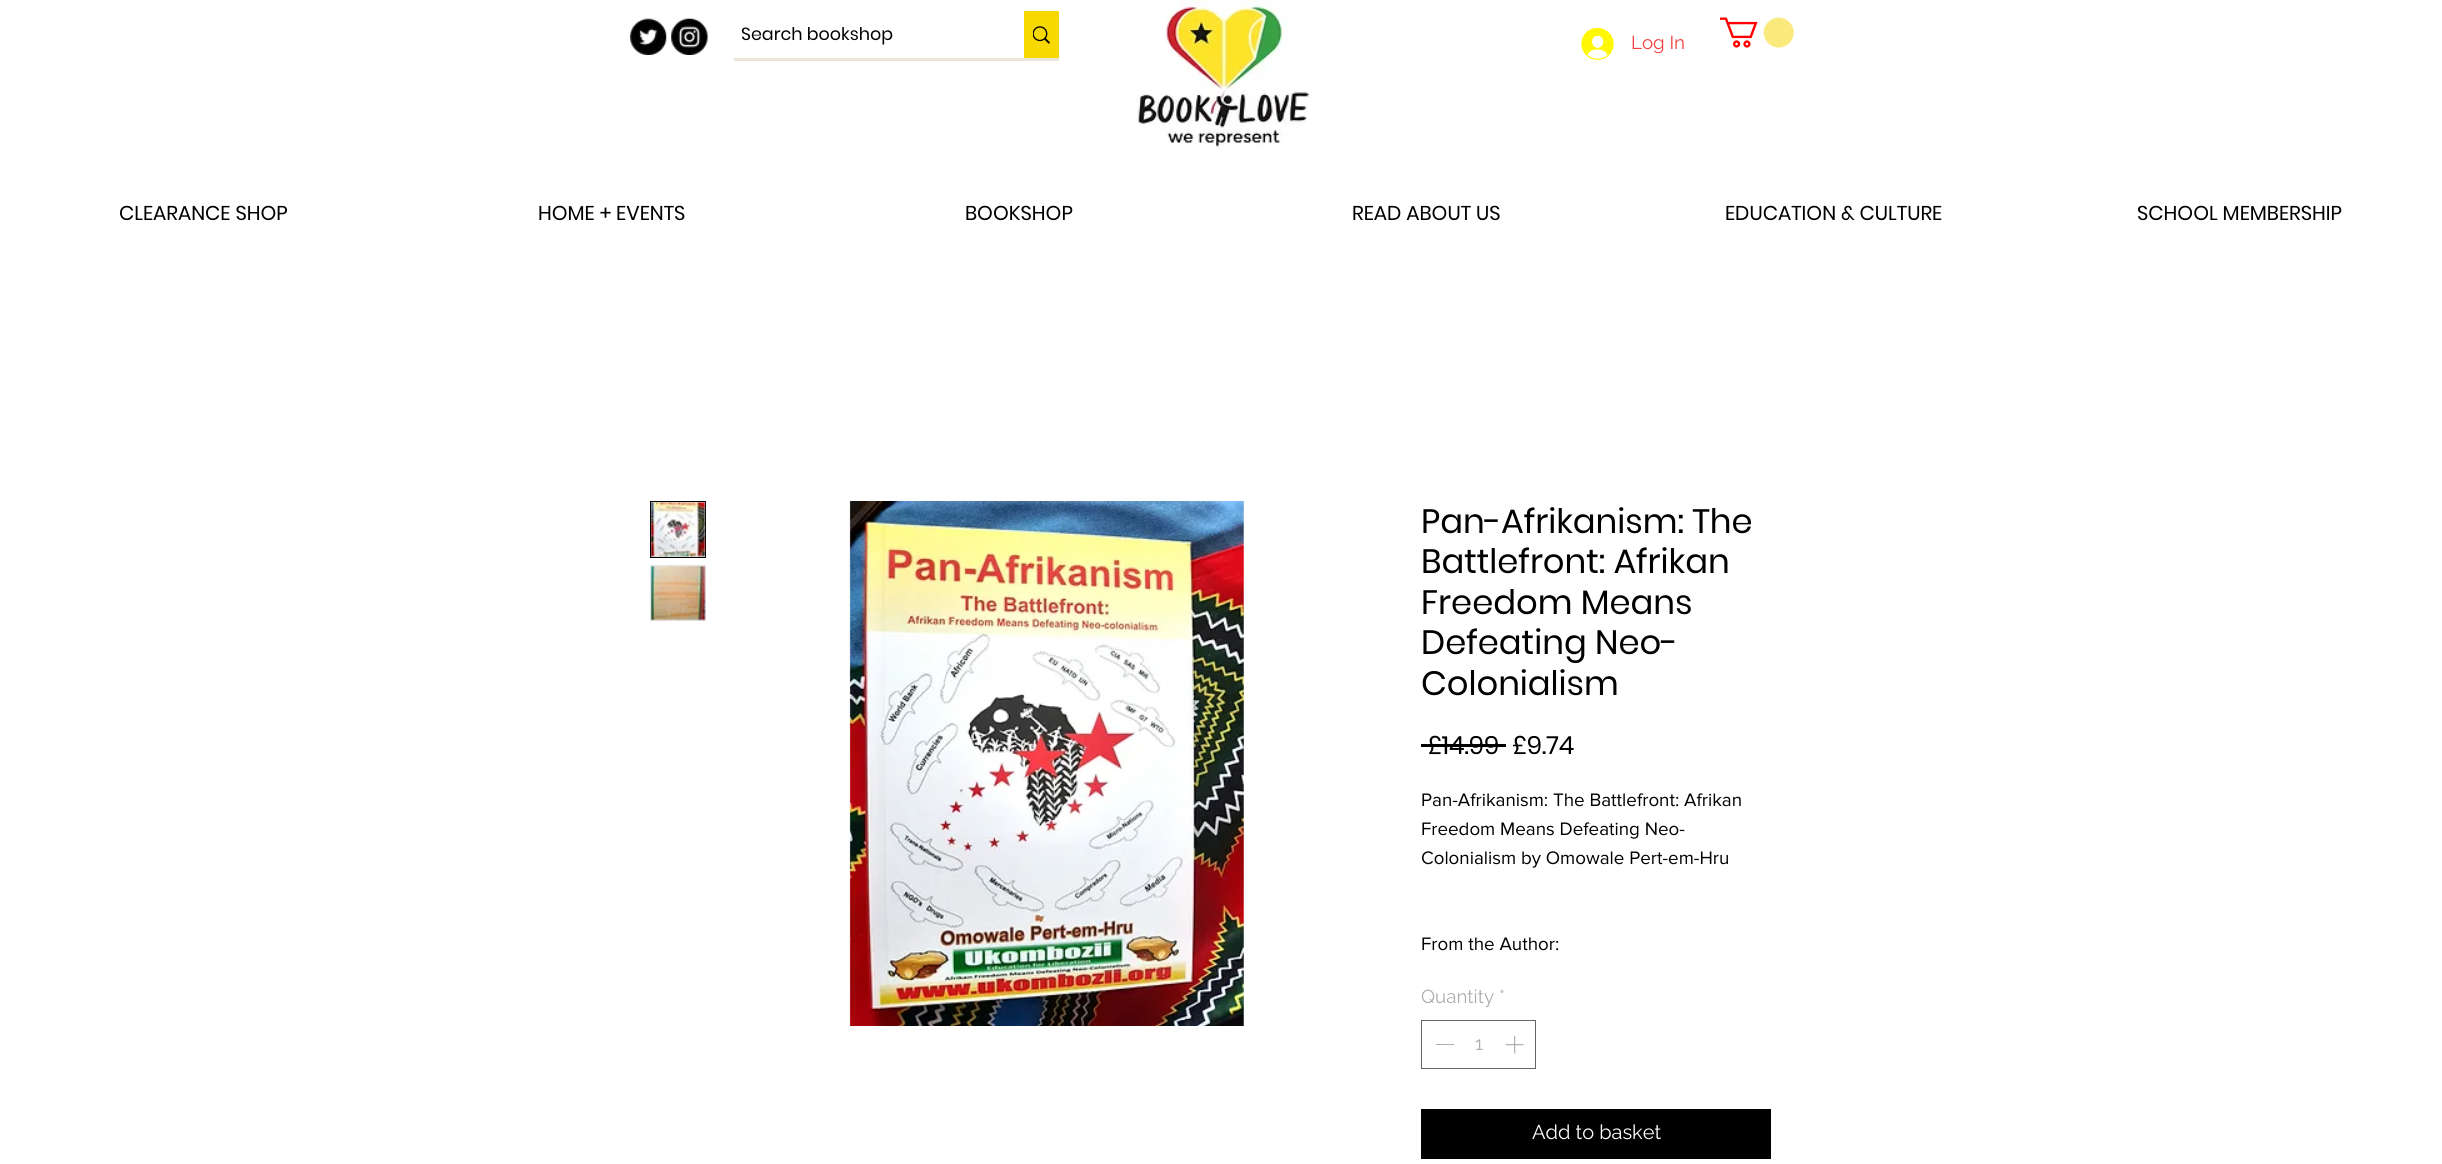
#include <cairo.h>
#include <math.h>
#include <stddef.h>

typedef struct { const char *family; double size; int italic, bold; unsigned color; } style_t;
static cairo_t *ctx;

static void ink(unsigned color) {
    cairo_set_source_rgb(ctx, (color >> 16) / 255.0, (color >> 8 & 255) / 255.0, (color & 255) / 255.0);
}

static void write(double x, double y, const char *s, const style_t *st) {
    cairo_select_font_face(ctx, st->family, st->italic ? CAIRO_FONT_SLANT_ITALIC : CAIRO_FONT_SLANT_NORMAL,
        st->bold ? CAIRO_FONT_WEIGHT_BOLD : CAIRO_FONT_WEIGHT_NORMAL);
    cairo_set_font_size(ctx, st->size);
    ink(st->color);
    cairo_move_to(ctx, x, y);
    cairo_show_text(ctx, s);
}

static void block(double x, double y, double w, double h, unsigned color) {
    ink(color);
    cairo_rectangle(ctx, x, y, w, h);
    cairo_fill(ctx);
}

static void paste(const char *path, double x, double y, double w, double h) {
    cairo_surface_t *image = cairo_image_surface_create_from_png(path);
    cairo_save(ctx);
    cairo_set_source_surface(ctx, image, x, y);
    cairo_rectangle(ctx, x, y, w, h);
    cairo_fill(ctx);
    cairo_restore(ctx);
    cairo_surface_destroy(image);
}

static const style_t s1 = {"Poppins", 17.5, 0, 0, 0x000000};
static const style_t s2 = {"Raleway", 18.75, 0, 0, 0xf24141};
static const style_t s3 = {"Poppins", 20, 0, 0, 0x000000};
static const style_t s4 = {"Poppins", 33.75, 0, 0, 0x000000};
static const style_t s5 = {"Poppins", 25, 0, 0, 0x000000};
static const style_t s6 = {"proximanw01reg", 18.75, 0, 0, 0x000000};
static const style_t s7 = {"Raleway", 18.75, 0, 0, 0xadadad};
static const style_t s8 = {"Raleway", 20, 0, 0, 0xffffff};

int main(void) {
    cairo_surface_t *surface = cairo_image_surface_create(CAIRO_FORMAT_RGB24, 2442, 1164);
    ctx = cairo_create(surface);
    cairo_font_options_t *options = cairo_font_options_create();
    cairo_font_options_set_hint_metrics(options, CAIRO_HINT_METRICS_OFF);
    cairo_font_options_set_hint_style(options, CAIRO_HINT_STYLE_NONE);
    cairo_set_font_options(ctx, options);
    cairo_set_miter_limit(ctx, 4);
    ink(0xffffff);
    cairo_paint(ctx);
    paste("pic1.png", 630, 18, 37, 37);
    paste("pic2.png", 671, 18, 37, 37);
    block(734, 58, 325, 3, 0xebe5d6);
    write(741, 40, "Search bookshop", &s1);
    block(1024, 11, 35, 47, 0xf8d801);
    paste("pic3.png", 1033, 26, 17, 18);
    paste("pic4.png", 1136, 0, 175, 150);
    paste("pic5.png", 1581, 28, 33, 32);
    write(1631, 49, "Log In", &s2);
    paste("pic6.png", 1720, 17, 74, 31);
    write(119, 220, "CLEARANCE SHOP", &s3);
    write(538, 220, "HOME + EVENTS", &s3);
    write(965, 220, "BOOKSHOP", &s3);
    write(1352, 220, "READ ABOUT US", &s3);
    write(1725, 220, "EDUCATION & CULTURE", &s3);
    write(2137, 220, "SCHOOL MEMBERSHIP", &s3);
    ink(0xe3e3e3);
    cairo_rectangle(ctx, 650.5, 501.5, 55, 56);
    cairo_fill_preserve(ctx);
    ink(0x000000);
    cairo_set_line_width(ctx, 1);
    cairo_stroke(ctx);
    paste("pic7.png", 651, 502, 55, 55);
    block(650, 565, 56, 56, 0xe3e3e3);
    paste("pic8.png", 651, 565, 55, 56);
    paste("pic9.png", 849, 501, 395, 525);
    write(1421, 533, "Pan-Afrikanism: The", &s4);
    write(1421, 573, "Battlefront: Afrikan", &s4);
    write(1421, 614, "Freedom Means", &s4);
    write(1421, 654, "Defeating Neo-", &s4);
    write(1421, 695, "Colonialism", &s4);
    write(1427, 754, "£14.99", &s5);
    block(1421, 744, 85, 3, 0x000000);
    write(1512, 754, "£9.74", &s5);
    write(1421, 806, "Pan-Afrikanism: The Battlefront: Afrikan", &s6);
    write(1421, 835, "Freedom Means Defeating Neo-", &s6);
    write(1421, 864, "Colonialism by Omowale Pert-em-Hru", &s6);
    write(1421, 950, "From the Author:", &s6);
    write(1421, 1003, "Quantity *", &s7);
    cairo_rectangle(ctx, 1421.5, 1020.5, 114, 48);
    ink(0x666666);
    cairo_stroke(ctx);
    block(1436, 1044, 18, 1, 0xadadad);
    write(1475, 1050, "1", &s7);
    paste("pic10.png", 1505, 1035, 19, 19);
    block(1421, 1109, 350, 50, 0x000000);
    write(1532, 1139, "Add to basket", &s8);
    cairo_surface_write_to_png(surface, "screenshot.png");
    cairo_font_options_destroy(options);
    cairo_destroy(ctx);
    cairo_surface_destroy(surface);
    return 0;
}
